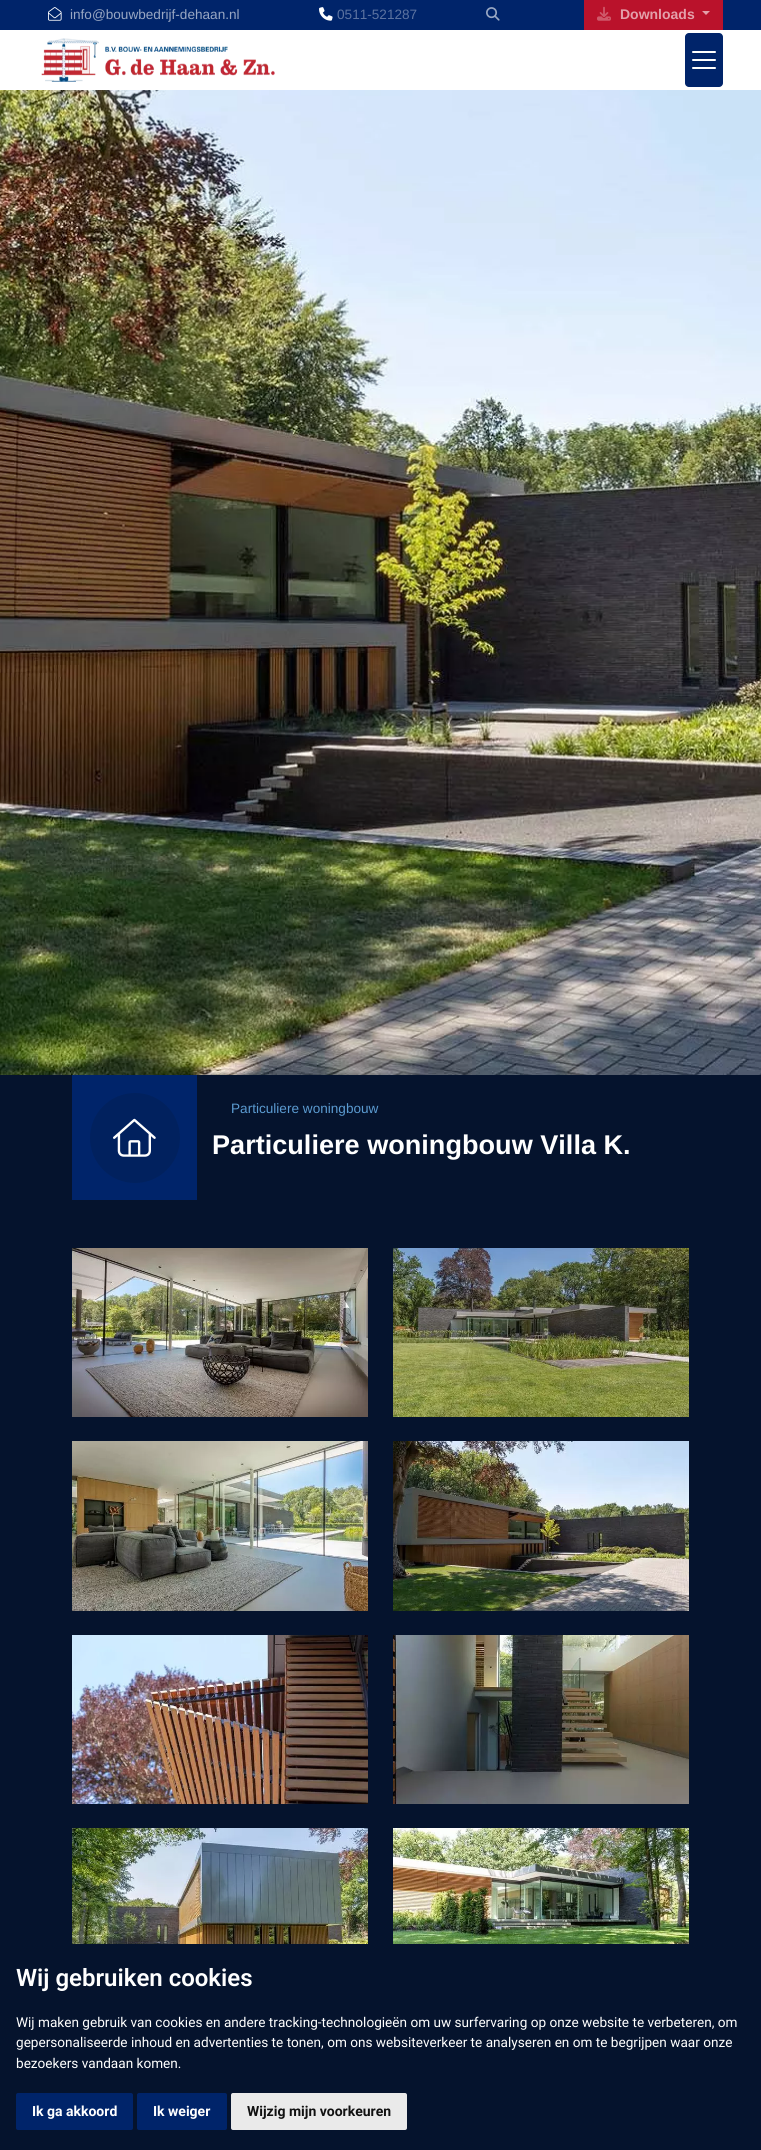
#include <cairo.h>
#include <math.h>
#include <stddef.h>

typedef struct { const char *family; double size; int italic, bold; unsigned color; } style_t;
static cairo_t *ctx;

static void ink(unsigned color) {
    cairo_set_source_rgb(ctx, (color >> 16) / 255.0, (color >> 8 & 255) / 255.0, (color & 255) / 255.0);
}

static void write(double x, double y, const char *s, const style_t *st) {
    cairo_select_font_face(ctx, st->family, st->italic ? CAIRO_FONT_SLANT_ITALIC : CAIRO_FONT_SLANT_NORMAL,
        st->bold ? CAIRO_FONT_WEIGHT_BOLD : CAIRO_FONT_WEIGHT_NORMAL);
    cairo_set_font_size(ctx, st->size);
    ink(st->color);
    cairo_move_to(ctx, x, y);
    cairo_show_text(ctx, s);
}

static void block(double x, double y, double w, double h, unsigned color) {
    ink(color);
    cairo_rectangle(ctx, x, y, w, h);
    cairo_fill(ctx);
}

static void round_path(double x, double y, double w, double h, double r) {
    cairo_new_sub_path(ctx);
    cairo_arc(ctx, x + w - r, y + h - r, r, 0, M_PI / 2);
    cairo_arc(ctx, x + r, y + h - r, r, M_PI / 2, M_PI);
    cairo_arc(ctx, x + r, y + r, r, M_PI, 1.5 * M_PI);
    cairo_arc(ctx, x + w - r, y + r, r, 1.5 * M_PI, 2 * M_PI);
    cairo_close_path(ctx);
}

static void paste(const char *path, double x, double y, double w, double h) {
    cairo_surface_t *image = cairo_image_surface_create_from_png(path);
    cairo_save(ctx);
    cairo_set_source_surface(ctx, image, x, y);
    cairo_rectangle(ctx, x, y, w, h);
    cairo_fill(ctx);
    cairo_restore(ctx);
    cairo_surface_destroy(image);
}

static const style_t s1 = {"Liberation Sans", 13.6, 0, 0, 0x99a7c3};
static const style_t s2 = {"Liberation Sans", 13.6, 0, 0, 0x5c73a0};
static const style_t s3 = {"Liberation Sans", 14, 0, 1, 0xe3a0aa};
static const style_t s4 = {"Liberation Sans", 13.6, 0, 0, 0x5b9bd1};
static const style_t s5 = {"Liberation Sans", 27.1, 0, 1, 0xffffff};
static const style_t s6 = {"Roboto SemiBold", 24, 0, 0, 0xffffff};
static const style_t s7 = {"Roboto", 13.6, 0, 0, 0xffffff};
static const style_t s8 = {"Roboto", 14, 0, 1, 0xffffff};
static const style_t s9 = {"Roboto", 14, 0, 1, 0x111111};

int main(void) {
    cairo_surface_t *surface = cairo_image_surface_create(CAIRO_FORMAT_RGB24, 761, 2150);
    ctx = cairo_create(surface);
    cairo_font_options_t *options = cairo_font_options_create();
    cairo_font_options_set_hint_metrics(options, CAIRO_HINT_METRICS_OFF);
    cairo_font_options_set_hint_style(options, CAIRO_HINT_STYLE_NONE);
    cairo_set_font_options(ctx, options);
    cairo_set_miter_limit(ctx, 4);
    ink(0x05132d);
    cairo_paint(ctx);
    block(0, 30, 761, 60, 0xffffff);
    block(0, 0, 761, 30, 0x00246a);
    paste("pic1.png", 48, 7, 14, 14);
    write(70, 19, "info@bouwbedrijf-dehaan.nl", &s1);
    paste("pic2.png", 319, 7, 14, 14);
    write(337, 19, "0511-521287", &s2);
    paste("pic3.png", 486, 7, 14, 14);
    block(584, 0, 139, 30, 0xba122b);
    paste("pic4.png", 597, 6, 14, 15);
    write(620, 19, "Downloads", &s3);
    cairo_new_path(ctx);
    cairo_move_to(ctx, 702, 11);
    cairo_line_to(ctx, 710, 11);
    cairo_line_to(ctx, 706, 15);
    cairo_close_path(ctx);
    cairo_fill(ctx);
    paste("pic5.png", 41, 38, 234, 44);
    ink(0x00246a);
    round_path(685, 33, 38, 54, 4);
    cairo_fill(ctx);
    paste("pic6.png", 692, 51, 24, 18);
    paste("pic7.png", 0, 90, 761, 985);
    block(72, 1075, 125, 125, 0x00246a);
    ink(0x01215e);
    cairo_arc(ctx, 135, 1138, 45, 0, 2 * M_PI);
    cairo_fill(ctx);
    paste("pic8.png", 113, 1118, 43, 39);
    write(231, 1113, "Particuliere woningbouw", &s4);
    write(212, 1154, "Particuliere woningbouw Villa K.", &s5);
    paste("pic9.png", 72, 1248, 296, 169);
    paste("pic10.png", 393, 1248, 296, 169);
    paste("pic11.png", 72, 1441, 296, 170);
    paste("pic12.png", 393, 1441, 296, 170);
    paste("pic13.png", 72, 1635, 296, 169);
    paste("pic14.png", 393, 1635, 296, 169);
    paste("pic15.png", 72, 1828, 296, 116);
    paste("pic16.png", 393, 1828, 296, 116);
    write(16, 1986, "Wij gebruiken cookies", &s6);
    write(16, 2027, "Wij maken gebruik van cookies en andere tracking-technologieën om uw surfervaring op onze website te verbeteren, om", &s7);
    write(16, 2047, "gepersonaliseerde inhoud en advertenties te tonen, om ons websiteverkeer te analyseren en om te begrijpen waar onze", &s7);
    write(16, 2068, "bezoekers vandaan komen.", &s7);
    ink(0x00246a);
    round_path(16, 2093, 117, 37, 2);
    cairo_fill(ctx);
    write(32, 2116, "Ik ga akkoord", &s8);
    ink(0x00246a);
    round_path(137, 2093, 90, 37, 2);
    cairo_fill(ctx);
    write(153, 2116, "Ik weiger", &s8);
    ink(0xeaeaea);
    round_path(231, 2093, 176, 37, 2);
    cairo_fill(ctx);
    write(247, 2116, "Wijzig mijn voorkeuren", &s9);
    cairo_surface_write_to_png(surface, "screenshot.png");
    cairo_font_options_destroy(options);
    cairo_destroy(ctx);
    cairo_surface_destroy(surface);
    return 0;
}
